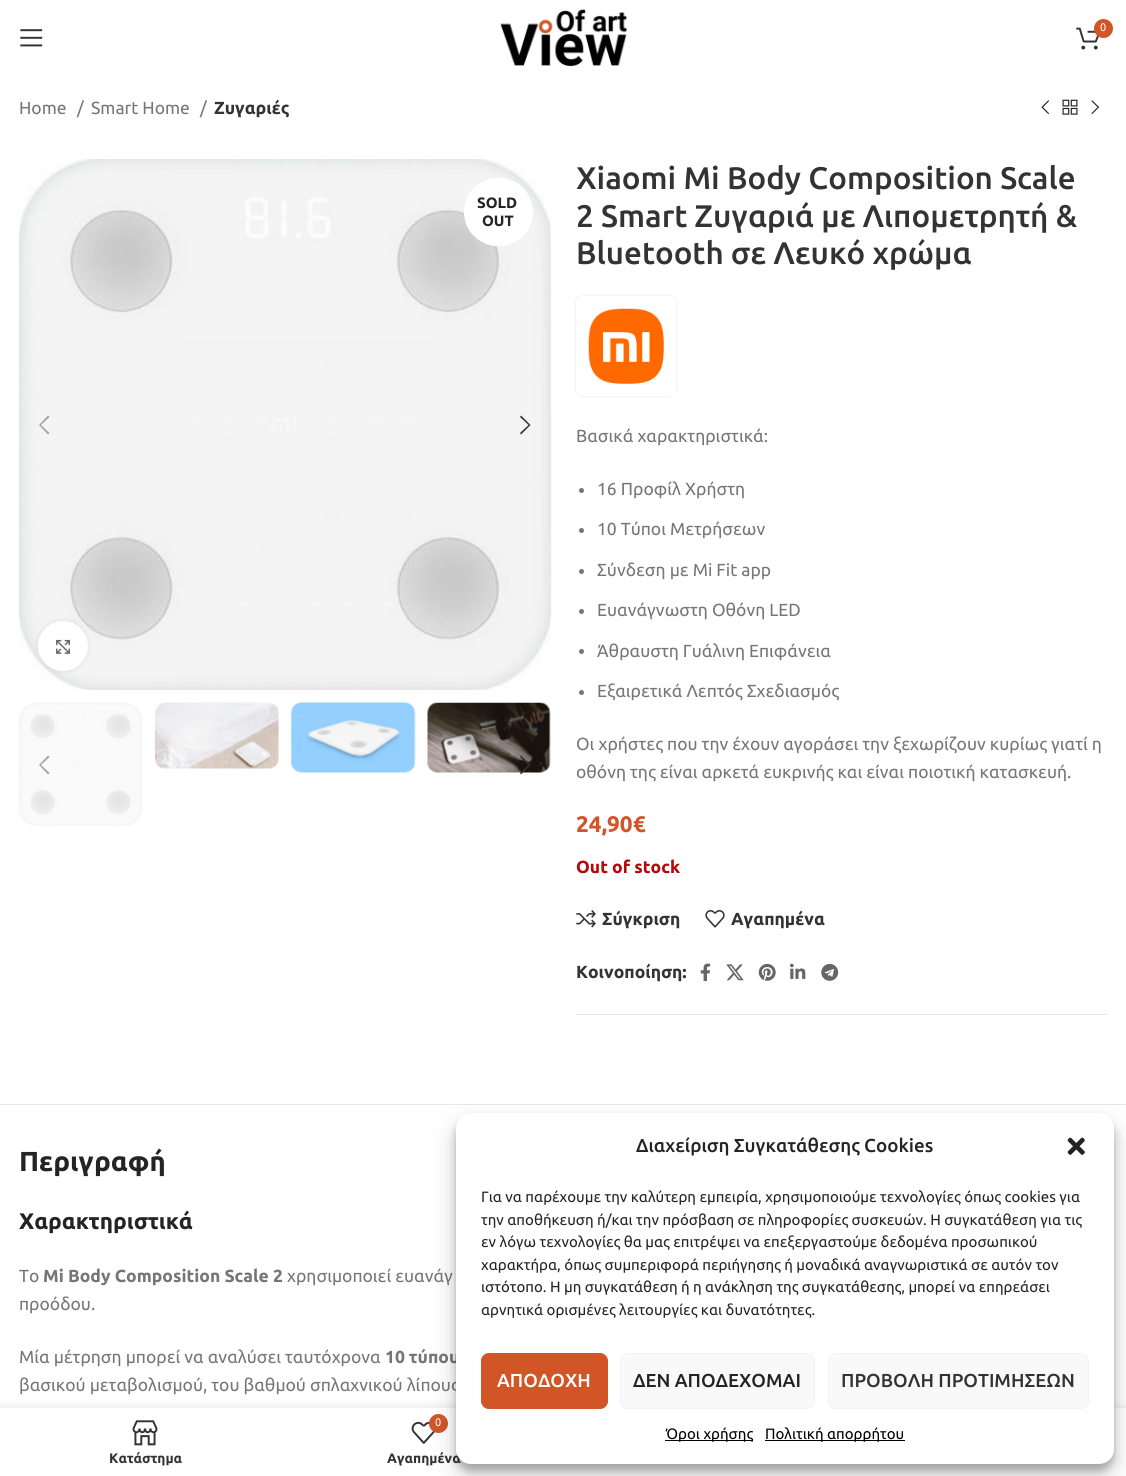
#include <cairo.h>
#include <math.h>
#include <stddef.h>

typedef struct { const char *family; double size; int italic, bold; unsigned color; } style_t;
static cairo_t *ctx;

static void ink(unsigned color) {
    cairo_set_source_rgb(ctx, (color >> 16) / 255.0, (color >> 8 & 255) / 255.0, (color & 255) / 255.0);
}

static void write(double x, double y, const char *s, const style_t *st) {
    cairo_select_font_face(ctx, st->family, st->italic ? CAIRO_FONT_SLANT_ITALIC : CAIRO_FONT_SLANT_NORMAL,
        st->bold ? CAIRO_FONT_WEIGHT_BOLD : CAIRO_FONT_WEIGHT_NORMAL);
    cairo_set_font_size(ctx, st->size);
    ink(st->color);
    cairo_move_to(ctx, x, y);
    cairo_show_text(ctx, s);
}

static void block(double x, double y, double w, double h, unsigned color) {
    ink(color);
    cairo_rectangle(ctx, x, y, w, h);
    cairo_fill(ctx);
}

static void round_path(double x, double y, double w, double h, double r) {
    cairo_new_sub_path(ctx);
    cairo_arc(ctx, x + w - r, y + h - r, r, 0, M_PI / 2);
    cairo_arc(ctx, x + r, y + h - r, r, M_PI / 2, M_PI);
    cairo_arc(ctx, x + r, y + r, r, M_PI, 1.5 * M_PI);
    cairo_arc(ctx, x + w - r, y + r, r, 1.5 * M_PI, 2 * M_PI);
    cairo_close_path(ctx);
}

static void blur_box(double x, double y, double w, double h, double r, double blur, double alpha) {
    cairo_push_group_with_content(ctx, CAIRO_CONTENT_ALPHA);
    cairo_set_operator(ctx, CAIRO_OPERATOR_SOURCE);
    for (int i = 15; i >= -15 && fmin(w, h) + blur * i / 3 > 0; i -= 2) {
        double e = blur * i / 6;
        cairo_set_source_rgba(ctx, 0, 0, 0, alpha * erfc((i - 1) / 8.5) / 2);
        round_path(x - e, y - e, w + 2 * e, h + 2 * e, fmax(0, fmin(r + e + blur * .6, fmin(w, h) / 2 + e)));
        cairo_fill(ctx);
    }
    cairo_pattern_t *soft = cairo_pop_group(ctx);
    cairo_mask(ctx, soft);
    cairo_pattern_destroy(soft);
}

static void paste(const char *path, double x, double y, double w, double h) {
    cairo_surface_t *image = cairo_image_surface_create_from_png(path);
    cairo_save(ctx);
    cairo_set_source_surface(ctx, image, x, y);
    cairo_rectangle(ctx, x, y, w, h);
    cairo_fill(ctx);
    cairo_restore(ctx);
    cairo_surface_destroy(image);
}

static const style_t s1 = {"Ubuntu", 11, 0, 0, 0xffffff};
static const style_t s2 = {"Ubuntu", 17.5, 0, 0, 0x767676};
static const style_t s3 = {"Ubuntu", 17.5, 0, 1, 0x333333};
static const style_t s4 = {"Ubuntu", 15, 0, 1, 0x242424};
static const style_t s5 = {"Ubuntu Medium", 31.25, 0, 0, 0x333333};
static const style_t s6 = {"Ubuntu", 22.5, 0, 1, 0xd25527};
static const style_t s7 = {"Ubuntu", 17.5, 0, 1, 0xb50808};
static const style_t s8 = {"Ubuntu", 27.5, 0, 1, 0x242424};
static const style_t s9 = {"Ubuntu", 22.5, 0, 1, 0x242424};
static const style_t s10 = {"Ubuntu", 17.5, 0, 1, 0x767676};
static const style_t s11 = {"Ubuntu", 13.75, 0, 1, 0x333333};
static const style_t s12 = {"Ubuntu Medium", 18.75, 0, 0, 0x242424};
static const style_t s13 = {"Ubuntu", 15, 0, 0, 0x242424};
static const style_t s14 = {"Ubuntu Medium", 18.75, 0, 0, 0xffffff};
static const style_t s15 = {"Ubuntu Medium", 18.75, 0, 0, 0x333333};
static const style_t s16 = {"Ubuntu", 15, 0, 0, 0x000000};

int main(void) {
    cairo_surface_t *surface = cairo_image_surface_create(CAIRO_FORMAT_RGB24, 1126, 1476);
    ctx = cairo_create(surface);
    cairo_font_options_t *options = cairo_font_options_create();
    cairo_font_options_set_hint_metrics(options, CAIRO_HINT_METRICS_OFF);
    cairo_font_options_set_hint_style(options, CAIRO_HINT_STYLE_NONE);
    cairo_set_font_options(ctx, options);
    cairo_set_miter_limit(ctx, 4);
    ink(0xffffff);
    cairo_paint(ctx);
    paste("pic1.png", 500, 9, 128, 58);
    paste("pic2.png", 1076, 27, 23, 23);
    ink(0xd25527);
    cairo_arc(ctx, 1103.5, 28.5, 9.5, 0, 2 * M_PI);
    cairo_fill(ctx);
    write(1100, 31, "0", &s1);
    paste("pic3.png", 20, 29, 23, 18);
    write(19, 114, "Home", &s2);
    write(77, 114, "/", &s2);
    write(91, 114, "Smart Home", &s2);
    write(200, 114, "/", &s2);
    write(214, 114, "Ζυγαριές", &s3);
    paste("pic4.png", 1041, 100, 8, 15);
    paste("pic5.png", 1062, 99, 16, 16);
    paste("pic6.png", 1091, 100, 8, 15);
    block(0, 1104, 1126, 1, 0xe7e7e7);
    paste("pic7.png", 19, 159, 533, 531);
    ink(0xffffff);
    round_path(464, 178, 69, 68, 34);
    cairo_fill(ctx);
    write(477, 208, "SOLD", &s4);
    write(482, 226, "OUT", &s4);
    ink(0xa5a5a5);
    cairo_new_path(ctx);
    cairo_move_to(ctx, 49.5, 417);
    cairo_line_to(ctx, 48, 415.5);
    cairo_line_to(ctx, 39, 425);
    cairo_line_to(ctx, 48, 434.5);
    cairo_line_to(ctx, 49.5, 433);
    cairo_line_to(ctx, 41, 425);
    cairo_close_path(ctx);
    cairo_fill(ctx);
    ink(0x333333);
    cairo_new_path(ctx);
    cairo_move_to(ctx, 520, 417);
    cairo_line_to(ctx, 528.5, 425);
    cairo_line_to(ctx, 520, 433);
    cairo_line_to(ctx, 521, 434.5);
    cairo_line_to(ctx, 530.5, 425);
    cairo_line_to(ctx, 521, 415.5);
    cairo_close_path(ctx);
    cairo_fill(ctx);
    ink(0x000000);
    blur_box(38, 621, 50, 50, 25, 3, 0.08);
    ink(0xffffff);
    cairo_arc(ctx, 63, 646, 25, 0, 2 * M_PI);
    cairo_fill(ctx);
    paste("pic8.png", 56, 639, 14, 15);
    paste("pic9.png", 18, 702, 125, 124);
    paste("pic10.png", 155, 702, 124, 67);
    paste("pic11.png", 291, 702, 125, 71);
    paste("pic12.png", 427, 702, 124, 71);
    ink(0xa5a5a5);
    cairo_new_path(ctx);
    cairo_move_to(ctx, 49.5, 757);
    cairo_line_to(ctx, 48, 755.5);
    cairo_line_to(ctx, 39, 765);
    cairo_line_to(ctx, 48, 774.5);
    cairo_line_to(ctx, 49.5, 773);
    cairo_line_to(ctx, 41, 765);
    cairo_close_path(ctx);
    cairo_fill(ctx);
    ink(0x333333);
    cairo_new_path(ctx);
    cairo_move_to(ctx, 520, 757);
    cairo_line_to(ctx, 528.5, 765);
    cairo_line_to(ctx, 520, 773);
    cairo_line_to(ctx, 521, 774.5);
    cairo_line_to(ctx, 530.5, 765);
    cairo_line_to(ctx, 521, 755.5);
    cairo_close_path(ctx);
    cairo_fill(ctx);
    write(576, 189, "Xiaomi Mi Body Composition Scale", &s5);
    write(576, 227, "2 Smart Ζυγαριά με Λιπομετρητή &", &s5);
    write(576, 264, "Bluetooth σε Λευκό χρώμα", &s5);
    ink(0x000000);
    blur_box(576, 296, 100, 100, 6, 1, 0.12);
    ink(0xffffff);
    round_path(576, 296, 100, 100, 6);
    cairo_fill(ctx);
    paste("pic13.png", 588, 308, 76, 76);
    write(576, 442, "Βασικά χαρακτηριστικά:", &s2);
    ink(0x777777);
    cairo_new_path(ctx);
    cairo_arc(ctx, 581.5, 490.5, 2.5, 0, 2 * M_PI);
    cairo_fill(ctx);
    write(597, 495, "16 Προφίλ Χρήστη", &s2);
    ink(0x777777);
    cairo_new_path(ctx);
    cairo_arc(ctx, 581.5, 530.5, 2.5, 0, 2 * M_PI);
    cairo_fill(ctx);
    write(597, 535, "10 Τύποι Μετρήσεων", &s2);
    ink(0x777777);
    cairo_new_path(ctx);
    cairo_arc(ctx, 581.5, 571.5, 2.5, 0, 2 * M_PI);
    cairo_fill(ctx);
    write(597, 576, "Σύνδεση με Mi Fit app", &s2);
    ink(0x777777);
    cairo_new_path(ctx);
    cairo_arc(ctx, 581.5, 611.5, 2.5, 0, 2 * M_PI);
    cairo_fill(ctx);
    write(597, 616, "Ευανάγνωστη Οθόνη LED", &s2);
    ink(0x777777);
    cairo_new_path(ctx);
    cairo_arc(ctx, 581.5, 651.5, 2.5, 0, 2 * M_PI);
    cairo_fill(ctx);
    write(597, 657, "Άθραυστη Γυάλινη Επιφάνεια", &s2);
    ink(0x777777);
    cairo_new_path(ctx);
    cairo_arc(ctx, 581.5, 692.5, 2.5, 0, 2 * M_PI);
    cairo_fill(ctx);
    write(597, 697, "Εξαιρετικά Λεπτός Σχεδιασμός", &s2);
    write(576, 750, "Οι χρήστες που την έχουν αγοράσει την ξεχωρίζουν κυρίως γιατί η", &s2);
    write(576, 778, "οθόνη της είναι αρκετά ευκρινής και είναι ποιοτική κατασκευή.", &s2);
    write(576, 832, "24,90€", &s6);
    write(576, 873, "Out of stock", &s7);
    paste("pic14.png", 576, 910, 20, 18);
    write(602, 925, "Σύγκριση", &s3);
    paste("pic15.png", 705, 910, 20, 18);
    write(731, 925, "Αγαπημένα", &s3);
    write(576, 978, "Κοινοποίηση:", &s3);
    paste("pic16.png", 700, 963, 11, 19);
    paste("pic17.png", 726, 964, 18, 17);
    paste("pic18.png", 758, 963, 18, 18);
    paste("pic19.png", 790, 963, 16, 16);
    paste("pic20.png", 821, 963, 18, 18);
    block(576, 1014, 532, 1, 0xe7e7e7);
    write(19, 1171, "Περιγραφή", &s8);
    write(19, 1229, "Χαρακτηριστικά", &s9);
    write(19, 1282, "Το", &s2);
    write(43, 1282, "Mi Body Composition Scale 2", &s10);
    write(287, 1282, "χρησιμοποιεί ευανάγ", &s2);
    write(19, 1310, "προόδου.", &s2);
    write(19, 1363, "Μία μέτρηση μπορεί να αναλύσει ταυτόχρονα", &s2);
    write(385, 1363, "10 τύπου", &s10);
    write(19, 1391, "βασικού μεταβολισμού, του βαθμού σπλαχνικού λίπους", &s2);
    ink(0x000000);
    blur_box(0, 1408, 1126, 68, 0, 5.5, 0.12);
    block(0, 1408, 1126, 68, 0xffffff);
    paste("pic21.png", 132, 1420, 26, 26);
    write(109, 1463, "Κατάστημα", &s11);
    paste("pic22.png", 411, 1421, 24, 23);
    ink(0xd25527);
    cairo_arc(ctx, 438.5, 1423.5, 9.5, 0, 2 * M_PI);
    cairo_fill(ctx);
    write(435, 1426, "0", &s1);
    write(387, 1463, "Αγαπημένα", &s11);
    ink(0x000000);
    blur_box(456, 1120, 658, 351, 15, 4, 0.23);
    blur_box(456, 1125, 658, 351, 15, 12.5, 0.19);
    ink(0xffffff);
    round_path(456, 1113, 658, 351, 15);
    cairo_fill(ctx);
    write(636, 1152, "Διαχείριση Συγκατάθεσης Cookies", &s12);
    paste("pic23.png", 1067, 1137, 18, 18);
    write(481, 1202, "Για να παρέχουμε την καλύτερη εμπειρία, χρησιμοποιούμε τεχνολογίες όπως cookies για", &s13);
    write(481, 1225, "την αποθήκευση ή/και την πρόσβαση σε πληροφορίες συσκευών. Η συγκατάθεση για τις", &s13);
    write(481, 1247, "εν λόγω τεχνολογίες θα μας επιτρέψει να επεξεργαστούμε δεδομένα προσωπικού", &s13);
    write(481, 1270, "χαρακτήρα, όπως συμπεριφορά περιήγησης ή μοναδικά αναγνωριστικά σε αυτόν τον", &s13);
    write(481, 1292, "ιστότοπο. Η μη συγκατάθεση ή η ανάκληση της συγκατάθεσης, μπορεί να επηρεάσει", &s13);
    write(481, 1315, "αρνητικά ορισμένες λειτουργίες και δυνατότητες.", &s13);
    ink(0xd25527);
    round_path(481.5, 1353.5, 126, 55, 7.5);
    cairo_fill_preserve(ctx);
    cairo_set_line_width(ctx, 1);
    cairo_stroke(ctx);
    write(497, 1387, "ΑΠΟΔΟΧΗ", &s14);
    ink(0xf9f9f9);
    round_path(620.5, 1353.5, 194, 55, 7.5);
    cairo_fill_preserve(ctx);
    ink(0xf2f2f2);
    cairo_stroke(ctx);
    write(633, 1387, "ΔΕΝ ΑΠΟΔΕΧΟΜΑΙ", &s12);
    ink(0xf9f9f9);
    round_path(828.5, 1353.5, 260, 55, 7.5);
    cairo_fill_preserve(ctx);
    ink(0xf2f2f2);
    cairo_stroke(ctx);
    write(841, 1387, "ΠΡΟΒΟΛΗ ΠΡΟΤΙΜΗΣΕΩΝ", &s15);
    block(665, 1440, 88, 1, 0x000000);
    write(666, 1439, "Όροι χρήσης", &s16);
    block(765, 1440, 140, 1, 0x000000);
    write(765, 1439, "Πολιτική απορρήτου", &s16);
    cairo_surface_write_to_png(surface, "screenshot.png");
    cairo_font_options_destroy(options);
    cairo_destroy(ctx);
    cairo_surface_destroy(surface);
    return 0;
}
